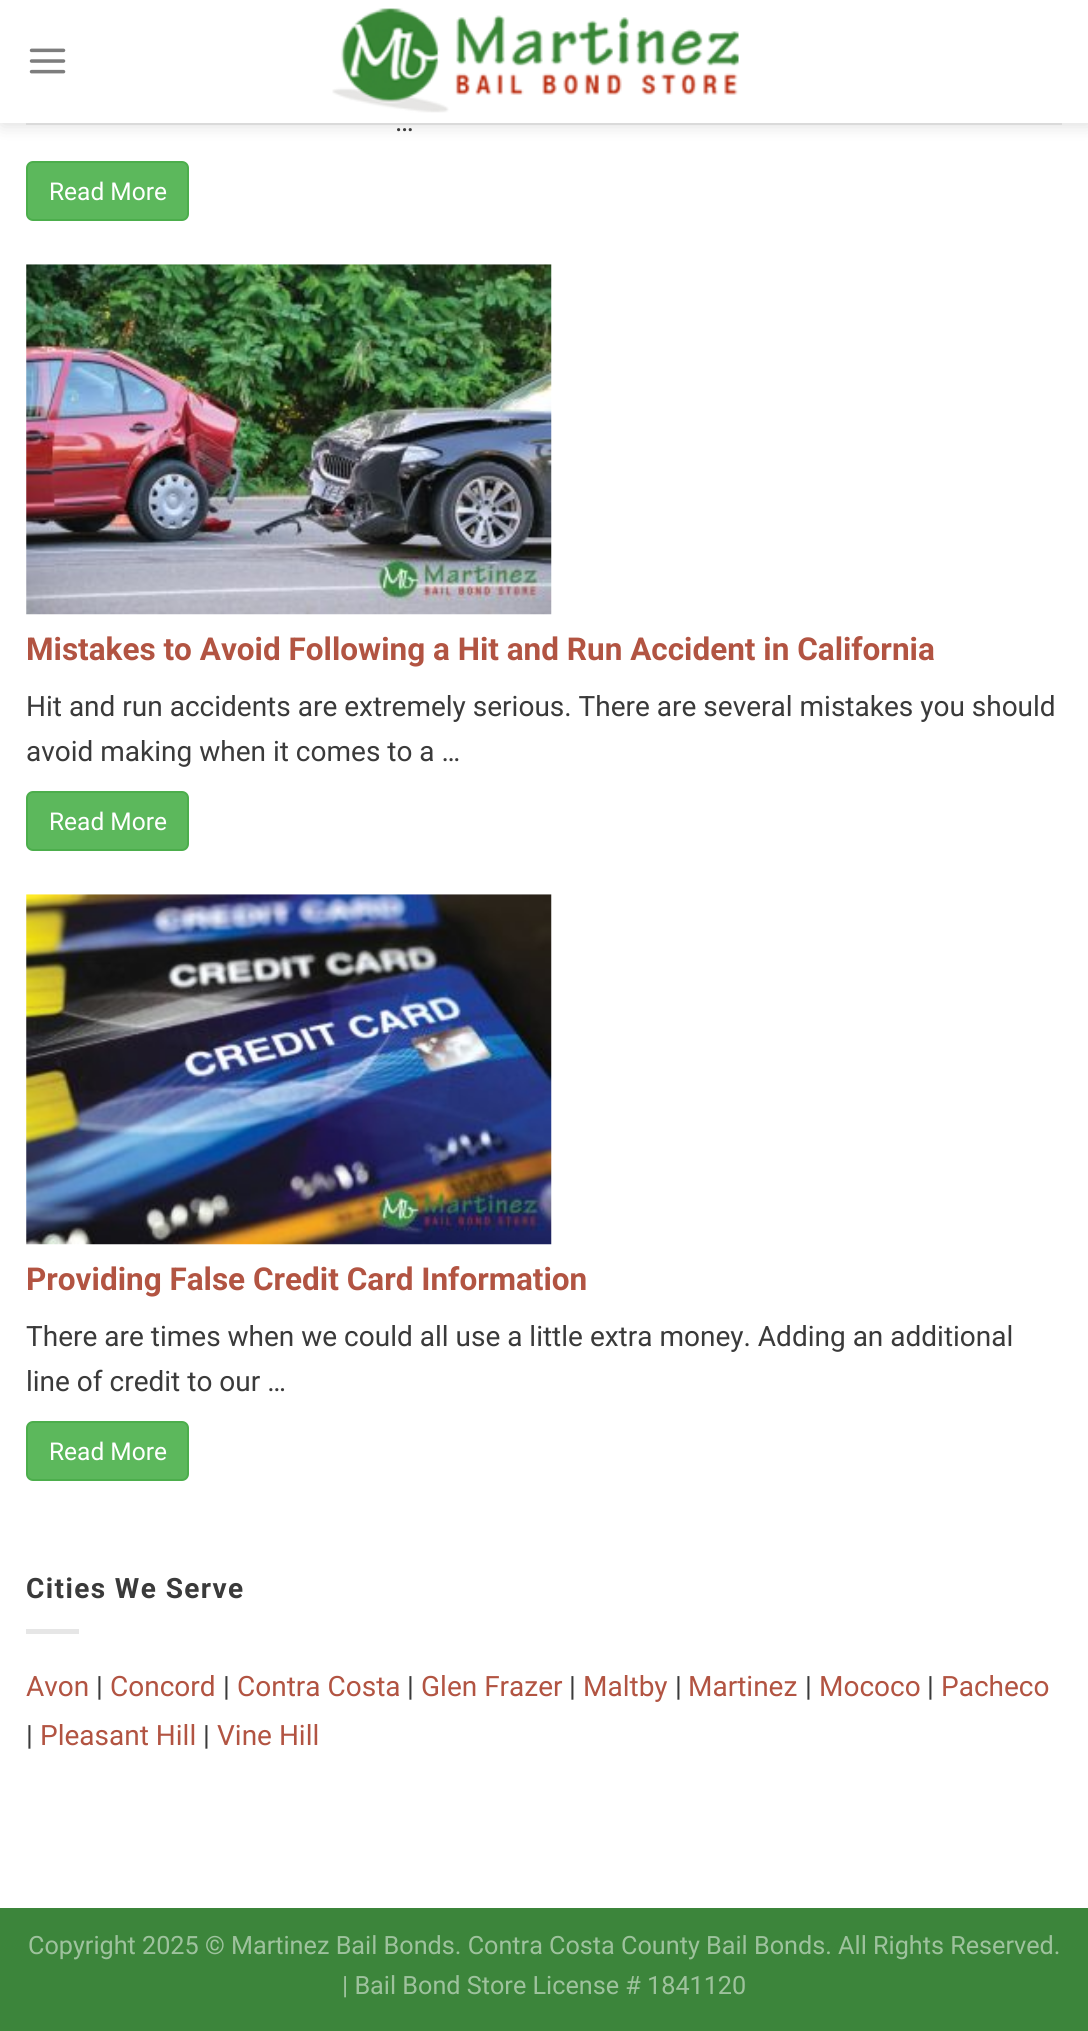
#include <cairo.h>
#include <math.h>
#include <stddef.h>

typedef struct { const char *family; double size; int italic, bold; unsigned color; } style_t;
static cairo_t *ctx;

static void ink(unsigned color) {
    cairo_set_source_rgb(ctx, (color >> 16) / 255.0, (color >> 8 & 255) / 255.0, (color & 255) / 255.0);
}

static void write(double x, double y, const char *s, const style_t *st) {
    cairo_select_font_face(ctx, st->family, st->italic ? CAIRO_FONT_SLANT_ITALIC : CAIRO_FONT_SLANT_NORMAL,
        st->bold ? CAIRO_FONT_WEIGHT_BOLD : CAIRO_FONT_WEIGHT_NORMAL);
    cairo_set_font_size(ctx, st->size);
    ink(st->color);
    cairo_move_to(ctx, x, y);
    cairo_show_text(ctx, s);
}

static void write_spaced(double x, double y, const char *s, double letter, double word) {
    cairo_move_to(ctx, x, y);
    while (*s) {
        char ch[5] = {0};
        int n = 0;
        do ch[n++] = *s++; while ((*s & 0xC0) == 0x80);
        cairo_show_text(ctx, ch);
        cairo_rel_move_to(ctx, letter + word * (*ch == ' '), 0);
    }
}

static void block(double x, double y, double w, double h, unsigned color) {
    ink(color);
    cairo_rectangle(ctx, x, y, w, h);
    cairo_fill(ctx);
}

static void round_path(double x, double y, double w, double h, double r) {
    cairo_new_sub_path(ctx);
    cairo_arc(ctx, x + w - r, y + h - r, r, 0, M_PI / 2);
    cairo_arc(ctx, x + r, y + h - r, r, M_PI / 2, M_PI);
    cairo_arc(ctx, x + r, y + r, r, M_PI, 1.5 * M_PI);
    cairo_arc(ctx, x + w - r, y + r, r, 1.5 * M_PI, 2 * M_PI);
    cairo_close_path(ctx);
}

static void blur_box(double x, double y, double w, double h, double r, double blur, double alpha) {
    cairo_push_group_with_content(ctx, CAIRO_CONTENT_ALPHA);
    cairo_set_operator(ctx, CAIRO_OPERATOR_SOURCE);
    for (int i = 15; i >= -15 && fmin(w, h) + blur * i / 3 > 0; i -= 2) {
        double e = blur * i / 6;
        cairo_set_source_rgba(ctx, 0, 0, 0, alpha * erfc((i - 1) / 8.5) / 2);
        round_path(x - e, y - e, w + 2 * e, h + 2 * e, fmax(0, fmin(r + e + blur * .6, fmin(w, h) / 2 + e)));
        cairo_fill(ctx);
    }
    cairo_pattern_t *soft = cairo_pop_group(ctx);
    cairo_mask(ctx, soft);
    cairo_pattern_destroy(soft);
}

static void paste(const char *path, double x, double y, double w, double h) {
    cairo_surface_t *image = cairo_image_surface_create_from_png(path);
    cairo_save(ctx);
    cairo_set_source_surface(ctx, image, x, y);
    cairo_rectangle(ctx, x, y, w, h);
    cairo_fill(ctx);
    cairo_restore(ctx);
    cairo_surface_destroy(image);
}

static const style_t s1 = {"Roboto", 28, 0, 0, 0x3a3a3a};
static const style_t s2 = {"Roboto", 24.5, 0, 0, 0xffffff};
static const style_t s3 = {"Roboto", 31.5, 0, 1, 0xb25442};
static const style_t s4 = {"Roboto", 28, 0, 0, 0xb25442};
static const style_t s5 = {"Roboto", 25.2, 0, 0, 0x9ec29d};

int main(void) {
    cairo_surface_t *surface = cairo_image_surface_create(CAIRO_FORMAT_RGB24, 1088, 2031);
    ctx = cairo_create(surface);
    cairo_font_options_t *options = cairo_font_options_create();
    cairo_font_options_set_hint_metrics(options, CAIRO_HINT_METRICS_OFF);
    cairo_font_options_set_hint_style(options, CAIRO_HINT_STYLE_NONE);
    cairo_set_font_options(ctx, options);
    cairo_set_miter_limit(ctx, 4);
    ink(0xffffff);
    cairo_paint(ctx);
    cairo_save(ctx);
    cairo_set_fill_rule(ctx, CAIRO_FILL_RULE_EVEN_ODD);
    cairo_new_path(ctx);
    cairo_move_to(ctx, 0, 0);
    cairo_line_to(ctx, 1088, 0);
    cairo_line_to(ctx, 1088, 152);
    cairo_line_to(ctx, 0, 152);
    cairo_close_path(ctx);
    cairo_move_to(ctx, 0, 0);
    cairo_line_to(ctx, 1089, 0);
    cairo_line_to(ctx, 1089, 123);
    cairo_line_to(ctx, 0, 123);
    cairo_close_path(ctx);
    cairo_clip(ctx);
    ink(0x000000);
    blur_box(2, 2, 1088, 122, 0, 9, 0.15);
    cairo_restore(ctx);
    paste("pic1.png", 29, 48, 37, 26);
    paste("pic2.png", 332, 8, 407, 105);
    cairo_set_source_rgba(ctx, 0.227, 0.227, 0.227, 0.1);
    cairo_rectangle(ctx, 26, 123, 1036, 2);
    cairo_fill(ctx);
    cairo_set_source_rgba(ctx, 1, 1, 1, 0.9);
    cairo_rectangle(ctx, 0, 122, 1088, 1);
    cairo_fill(ctx);
    write(395, 131, "…", &s1);
    ink(0x5cb85c);
    round_path(27, 162, 161, 58, 6);
    cairo_fill_preserve(ctx);
    ink(0x4cae4c);
    cairo_stroke(ctx);
    write(49, 200, "Read More", &s2);
    paste("pic3.png", 26, 264, 526, 351);
    write(26, 660, "Mistakes to Avoid Following a Hit and Run Accident in California", &s3);
    write(26, 716, "Hit and run accidents are extremely serious. There are several mistakes you should", &s1);
    write(26, 761, "avoid making when it comes to a …", &s1);
    ink(0x5cb85c);
    round_path(27, 792, 161, 58, 6);
    cairo_fill_preserve(ctx);
    ink(0x4cae4c);
    cairo_stroke(ctx);
    write(49, 830, "Read More", &s2);
    paste("pic4.png", 26, 894, 526, 351);
    write(26, 1290, "Providing False Credit Card Information", &s3);
    write(26, 1346, "There are times when we could all use a little extra money. Adding an additional", &s1);
    write(26, 1391, "line of credit to our …", &s1);
    ink(0x5cb85c);
    round_path(27, 1422, 161, 58, 6);
    cairo_fill_preserve(ctx);
    ink(0x4cae4c);
    cairo_stroke(ctx);
    write(49, 1460, "Read More", &s2);
    cairo_select_font_face(ctx, "Roboto", CAIRO_FONT_SLANT_NORMAL, CAIRO_FONT_WEIGHT_BOLD);
    cairo_set_font_size(ctx, 28);
    ink(0x3a3a3a);
    write_spaced(26, 1598, "Cities We Serve", 1.4, 0);
    block(26, 1629, 53, 5, 0xe6e6e6);
    write(26, 1696, "Avon", &s4);
    write(96, 1696, "|", &s1);
    write(110, 1696, "Concord", &s4);
    write(223, 1696, "|", &s1);
    write(237, 1696, "Contra Costa", &s4);
    write(407, 1696, "|", &s1);
    write(421, 1696, "Glen Frazer", &s4);
    write(569, 1696, "|", &s1);
    write(583, 1696, "Maltby", &s4);
    write(675, 1696, "|", &s1);
    write(688, 1696, "Martinez", &s4);
    write(805, 1696, "|", &s1);
    write(819, 1696, "Mococo", &s4);
    write(927, 1696, "|", &s1);
    write(941, 1696, "Pacheco", &s4);
    write(26, 1745, "|", &s1);
    write(40, 1745, "Pleasant Hill", &s4);
    write(203, 1745, "|", &s1);
    write(217, 1745, "Vine Hill", &s4);
    block(0, 1908, 1088, 123, 0x3c853b);
    write(28, 1954, "Copyright 2025 © Martinez Bail Bonds. Contra Costa County Bail Bonds. All Rights Reserved.", &s5);
    write(342, 1994, "| Bail Bond Store License # 1841120", &s5);
    cairo_surface_write_to_png(surface, "screenshot.png");
    cairo_font_options_destroy(options);
    cairo_destroy(ctx);
    cairo_surface_destroy(surface);
    return 0;
}
